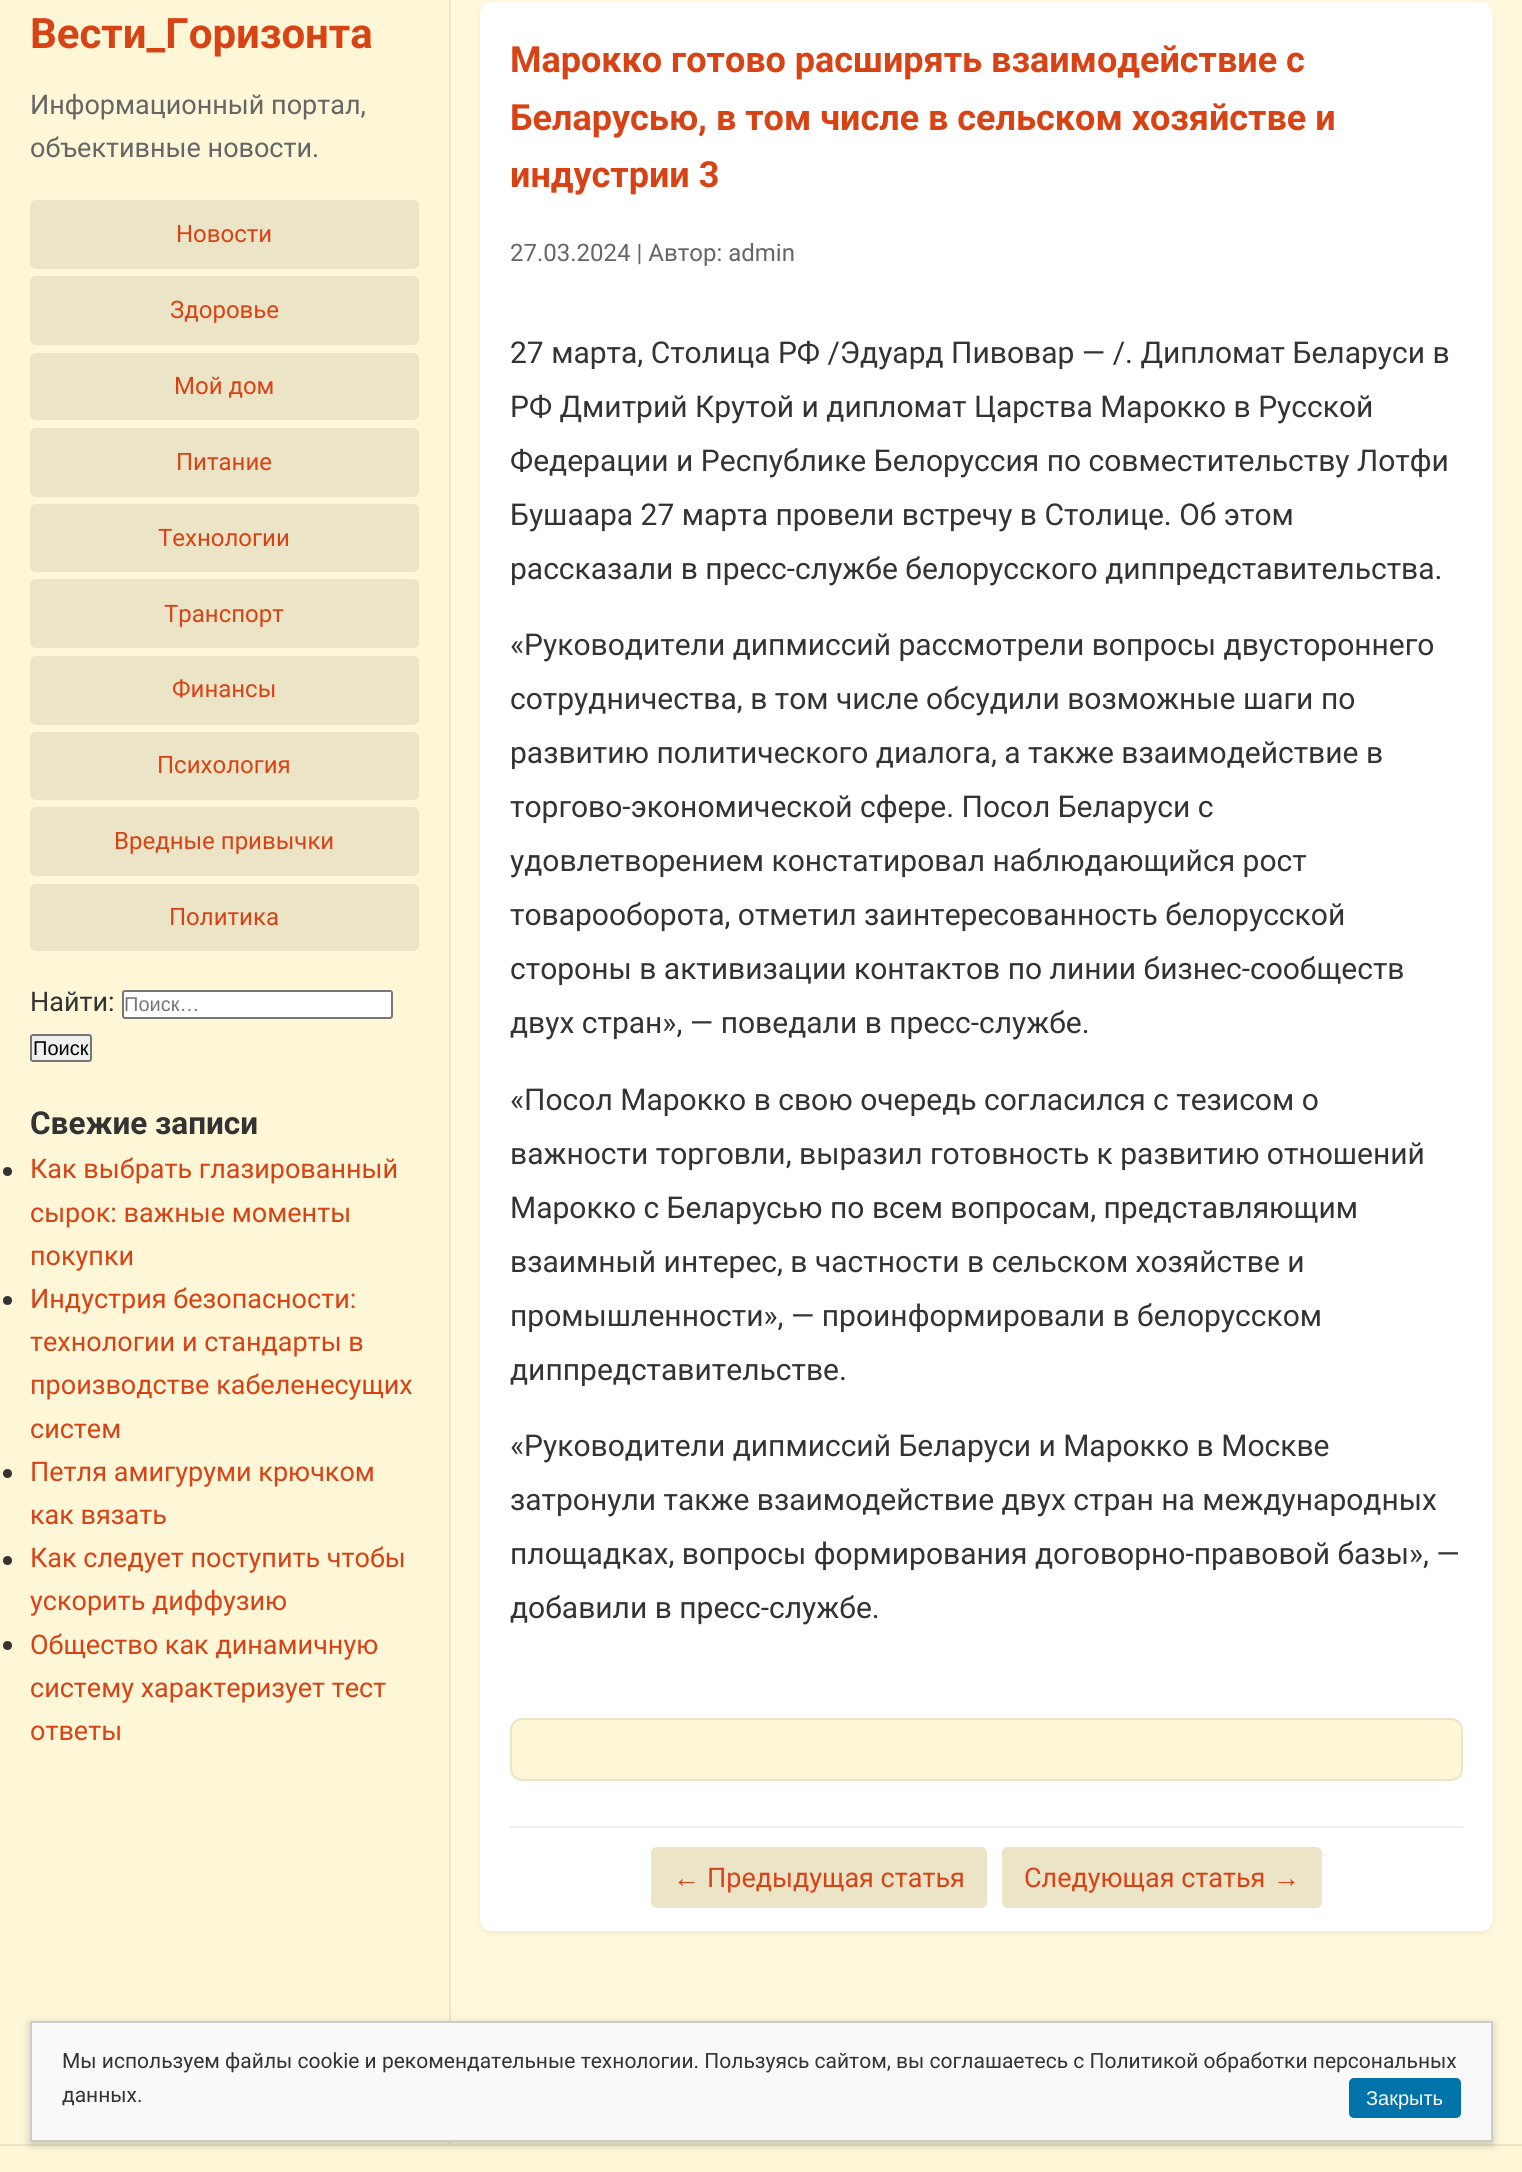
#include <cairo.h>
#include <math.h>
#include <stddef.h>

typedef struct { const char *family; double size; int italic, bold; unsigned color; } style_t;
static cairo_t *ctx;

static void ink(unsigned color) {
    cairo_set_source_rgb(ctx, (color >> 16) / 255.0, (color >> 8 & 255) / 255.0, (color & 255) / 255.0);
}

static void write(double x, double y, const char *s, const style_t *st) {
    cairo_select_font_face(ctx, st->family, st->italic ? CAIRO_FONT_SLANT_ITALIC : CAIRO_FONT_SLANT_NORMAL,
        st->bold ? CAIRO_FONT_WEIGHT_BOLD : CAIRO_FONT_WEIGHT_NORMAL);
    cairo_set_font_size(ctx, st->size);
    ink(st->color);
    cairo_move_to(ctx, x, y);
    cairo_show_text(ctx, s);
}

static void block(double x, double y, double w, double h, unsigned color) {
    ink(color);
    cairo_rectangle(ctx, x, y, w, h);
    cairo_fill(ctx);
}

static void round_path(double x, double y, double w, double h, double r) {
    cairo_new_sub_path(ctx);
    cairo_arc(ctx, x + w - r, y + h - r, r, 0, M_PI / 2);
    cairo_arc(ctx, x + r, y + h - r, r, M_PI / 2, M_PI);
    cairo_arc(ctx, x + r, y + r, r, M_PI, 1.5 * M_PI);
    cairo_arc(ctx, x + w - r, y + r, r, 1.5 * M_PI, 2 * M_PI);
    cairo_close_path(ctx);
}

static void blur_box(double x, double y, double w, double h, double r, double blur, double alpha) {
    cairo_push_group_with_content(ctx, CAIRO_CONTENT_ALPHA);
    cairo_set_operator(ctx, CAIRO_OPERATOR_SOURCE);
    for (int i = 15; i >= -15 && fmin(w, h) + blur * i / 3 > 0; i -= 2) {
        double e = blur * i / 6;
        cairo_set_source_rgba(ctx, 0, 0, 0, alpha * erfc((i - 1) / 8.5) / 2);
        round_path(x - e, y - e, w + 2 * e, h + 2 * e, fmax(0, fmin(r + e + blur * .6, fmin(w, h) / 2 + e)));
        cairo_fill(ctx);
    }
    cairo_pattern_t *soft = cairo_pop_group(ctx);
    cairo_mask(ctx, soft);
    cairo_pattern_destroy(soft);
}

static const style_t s1 = {"Roboto", 42, 0, 1, 0xd84315};
static const style_t s2 = {"Roboto", 27, 0, 0, 0x666666};
static const style_t s3 = {"Roboto", 24, 0, 0, 0xd84315};
static const style_t s4 = {"Roboto", 27, 0, 0, 0x333333};
static const style_t s5 = {"Liberation Sans", 20, 0, 0, 0x757575};
static const style_t s6 = {"Liberation Sans", 20, 0, 0, 0x000000};
static const style_t s7 = {"Roboto", 31.5, 0, 1, 0x333333};
static const style_t s8 = {"Roboto", 27, 0, 0, 0xd84315};
static const style_t s9 = {"Roboto", 36, 0, 1, 0xd84315};
static const style_t s10 = {"Roboto", 24, 0, 0, 0x666666};
static const style_t s11 = {"Roboto", 30, 0, 0, 0x333333};
static const style_t s12 = {"Liberation Sans", 27, 0, 0, 0xd84315};
static const style_t s13 = {"Roboto", 21, 0, 0, 0x333333};
static const style_t s14 = {"Liberation Sans", 20, 0, 0, 0xffffff};

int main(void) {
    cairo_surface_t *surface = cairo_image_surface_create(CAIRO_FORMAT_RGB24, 1522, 2172);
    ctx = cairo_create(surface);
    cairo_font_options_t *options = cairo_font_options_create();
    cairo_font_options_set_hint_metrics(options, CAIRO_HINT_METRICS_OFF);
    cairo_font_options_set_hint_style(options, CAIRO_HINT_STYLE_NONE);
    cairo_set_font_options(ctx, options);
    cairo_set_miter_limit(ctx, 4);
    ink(0xfff8dc);
    cairo_paint(ctx);
    block(0, 0, 449, 2144, 0xfdf7d8);
    block(449, 0, 2, 2144, 0xebe4c7);
    write(30, 48, "Вести_Горизонта", &s1);
    write(30, 114, "Информационный портал,", &s2);
    write(30, 157, "объективные новости.", &s2);
    ink(0xebe4c7);
    round_path(30, 200, 389, 69, 6);
    cairo_fill(ctx);
    write(176, 242, "Новости", &s3);
    ink(0xebe4c7);
    round_path(30, 276, 389, 69, 6);
    cairo_fill(ctx);
    write(170, 318, "Здоровье", &s3);
    ink(0xebe4c7);
    round_path(30, 353, 389, 67, 6);
    cairo_fill(ctx);
    write(174, 394, "Мой дом", &s3);
    ink(0xebe4c7);
    round_path(30, 428, 389, 69, 6);
    cairo_fill(ctx);
    write(176, 470, "Питание", &s3);
    ink(0xebe4c7);
    round_path(30, 504, 389, 68, 6);
    cairo_fill(ctx);
    write(158, 546, "Технологии", &s3);
    ink(0xebe4c7);
    round_path(30, 579, 389, 69, 6);
    cairo_fill(ctx);
    write(164, 622, "Транспорт", &s3);
    ink(0xebe4c7);
    round_path(30, 656, 389, 69, 6);
    cairo_fill(ctx);
    write(172, 697, "Финансы", &s3);
    ink(0xebe4c7);
    round_path(30, 732, 389, 68, 6);
    cairo_fill(ctx);
    write(157, 773, "Психология", &s3);
    ink(0xebe4c7);
    round_path(30, 807, 389, 69, 6);
    cairo_fill(ctx);
    write(114, 849, "Вредные привычки", &s3);
    ink(0xebe4c7);
    round_path(30, 884, 389, 67, 6);
    cairo_fill(ctx);
    write(169, 925, "Политика", &s3);
    write(30, 1011, "Найти:", &s4);
    ink(0xffffff);
    round_path(123, 991, 269, 27, 2);
    cairo_fill_preserve(ctx);
    ink(0x767676);
    cairo_stroke(ctx);
    write(124, 1011, "Поиск…", &s5);
    ink(0xefefef);
    round_path(31, 1035, 60, 26, 2);
    cairo_fill_preserve(ctx);
    ink(0x767676);
    cairo_stroke(ctx);
    write(33, 1055, "Поиск", &s6);
    write(30, 1134, "Свежие записи", &s7);
    cairo_new_path(ctx);
    cairo_arc(ctx, 7.5, 1171.5, 4.5, 0, 2 * M_PI);
    cairo_fill(ctx);
    write(30, 1178, "Как выбрать глазированный", &s8);
    write(30, 1222, "сырок: важные моменты", &s8);
    write(30, 1265, "покупки", &s8);
    ink(0x333333);
    cairo_new_path(ctx);
    cairo_arc(ctx, 7.5, 1300.5, 4.5, 0, 2 * M_PI);
    cairo_fill(ctx);
    write(30, 1308, "Индустрия безопасности:", &s8);
    write(30, 1351, "технологии и стандарты в", &s8);
    write(30, 1394, "производстве кабеленесущих", &s8);
    write(30, 1438, "систем", &s8);
    ink(0x333333);
    cairo_new_path(ctx);
    cairo_arc(ctx, 7.5, 1473.5, 4.5, 0, 2 * M_PI);
    cairo_fill(ctx);
    write(30, 1481, "Петля амигуруми крючком", &s8);
    write(30, 1524, "как вязать", &s8);
    ink(0x333333);
    cairo_new_path(ctx);
    cairo_arc(ctx, 7.5, 1560.5, 4.5, 0, 2 * M_PI);
    cairo_fill(ctx);
    write(30, 1567, "Как следует поступить чтобы", &s8);
    write(30, 1610, "ускорить диффузию", &s8);
    ink(0x333333);
    cairo_new_path(ctx);
    cairo_arc(ctx, 7.5, 1645.5, 4.5, 0, 2 * M_PI);
    cairo_fill(ctx);
    write(30, 1654, "Общество как динамичную", &s8);
    write(30, 1697, "систему характеризует тест", &s8);
    write(30, 1740, "ответы", &s8);
    ink(0x000000);
    blur_box(480, 5, 1013, 1929, 12, 3, 0.05);
    ink(0xffffff);
    round_path(480, 2, 1013, 1929, 12);
    cairo_fill(ctx);
    write(510, 72, "Марокко готово расширять взаимодействие с", &s9);
    write(510, 130, "Беларусью, в том числе в сельском хозяйстве и", &s9);
    write(510, 187, "индустрии 3", &s9);
    write(510, 261, "27.03.2024 | Автор: admin", &s10);
    write(510, 363, "27 марта, Столица РФ /Эдуард Пивовар — /. Дипломат Беларуси в", &s11);
    write(510, 417, "РФ Дмитрий Крутой и дипломат Царства Марокко в Русской", &s11);
    write(510, 471, "Федерации и Республике Белоруссия по совместительству Лотфи", &s11);
    write(510, 525, "Бушаара 27 марта провели встречу в Столице. Об этом", &s11);
    write(510, 579, "рассказали в пресс-службе белорусского диппредставительства.", &s11);
    write(510, 655, "«Руководители дипмиссий рассмотрели вопросы двустороннего", &s11);
    write(510, 709, "сотрудничества, в том числе обсудили возможные шаги по", &s11);
    write(510, 763, "развитию политического диалога, а также взаимодействие в", &s11);
    write(510, 817, "торгово-экономической сфере. Посол Беларуси с", &s11);
    write(510, 871, "удовлетворением констатировал наблюдающийся рост", &s11);
    write(510, 925, "товарооборота, отметил заинтересованность белорусской", &s11);
    write(510, 979, "стороны в активизации контактов по линии бизнес-сообществ", &s11);
    write(510, 1033, "двух стран», — поведали в пресс-службе.", &s11);
    write(510, 1110, "«Посол Марокко в свою очередь согласился с тезисом о", &s11);
    write(510, 1164, "важности торговли, выразил готовность к развитию отношений", &s11);
    write(510, 1218, "Марокко с Беларусью по всем вопросам, представляющим", &s11);
    write(510, 1272, "взаимный интерес, в частности в сельском хозяйстве и", &s11);
    write(510, 1326, "промышленности», — проинформировали в белорусском", &s11);
    write(510, 1380, "диппредставительстве.", &s11);
    write(510, 1456, "«Руководители дипмиссий Беларуси и Марокко в Москве", &s11);
    write(510, 1510, "затронули также взаимодействие двух стран на международных", &s11);
    write(510, 1564, "площадках, вопросы формирования договорно-правовой базы», —", &s11);
    write(510, 1618, "добавили в пресс-службе.", &s11);
    ink(0xfdf7d8);
    round_path(511, 1719, 951, 61, 11);
    cairo_fill_preserve(ctx);
    ink(0xebe4c7);
    cairo_stroke(ctx);
    block(510, 1826, 953, 2, 0xeeeeee);
    ink(0xebe4c7);
    round_path(651, 1847, 336, 61, 6);
    cairo_fill(ctx);
    write(673, 1887, "←", &s12);
    write(707, 1887, "Предыдущая статья", &s8);
    ink(0xebe4c7);
    round_path(1002, 1847, 320, 61, 6);
    cairo_fill(ctx);
    write(1024, 1887, "Следующая статья", &s8);
    write(1273, 1887, "→", &s12);
    block(0, 2146, 1522, 26, 0xfdf7d8);
    block(0, 2144, 1522, 2, 0xebe4c7);
    ink(0x000000);
    blur_box(30, 2024, 1463, 121, 0, 4.5, 0.2);
    ink(0xf9f9f9);
    cairo_rectangle(ctx, 31, 2022, 1461, 119);
    cairo_fill_preserve(ctx);
    ink(0xcccccc);
    cairo_stroke(ctx);
    write(62, 2068, "Мы используем файлы cookie и рекомендательные технологии. Пользуясь сайтом, вы соглашаетесь с Политикой обработки персональных", &s13);
    write(62, 2102, "данных.", &s13);
    ink(0x0073aa);
    round_path(1349, 2078, 112, 40, 5);
    cairo_fill(ctx);
    write(1366, 2105, "Закрыть", &s14);
    cairo_surface_write_to_png(surface, "screenshot.png");
    cairo_font_options_destroy(options);
    cairo_destroy(ctx);
    cairo_surface_destroy(surface);
    return 0;
}
